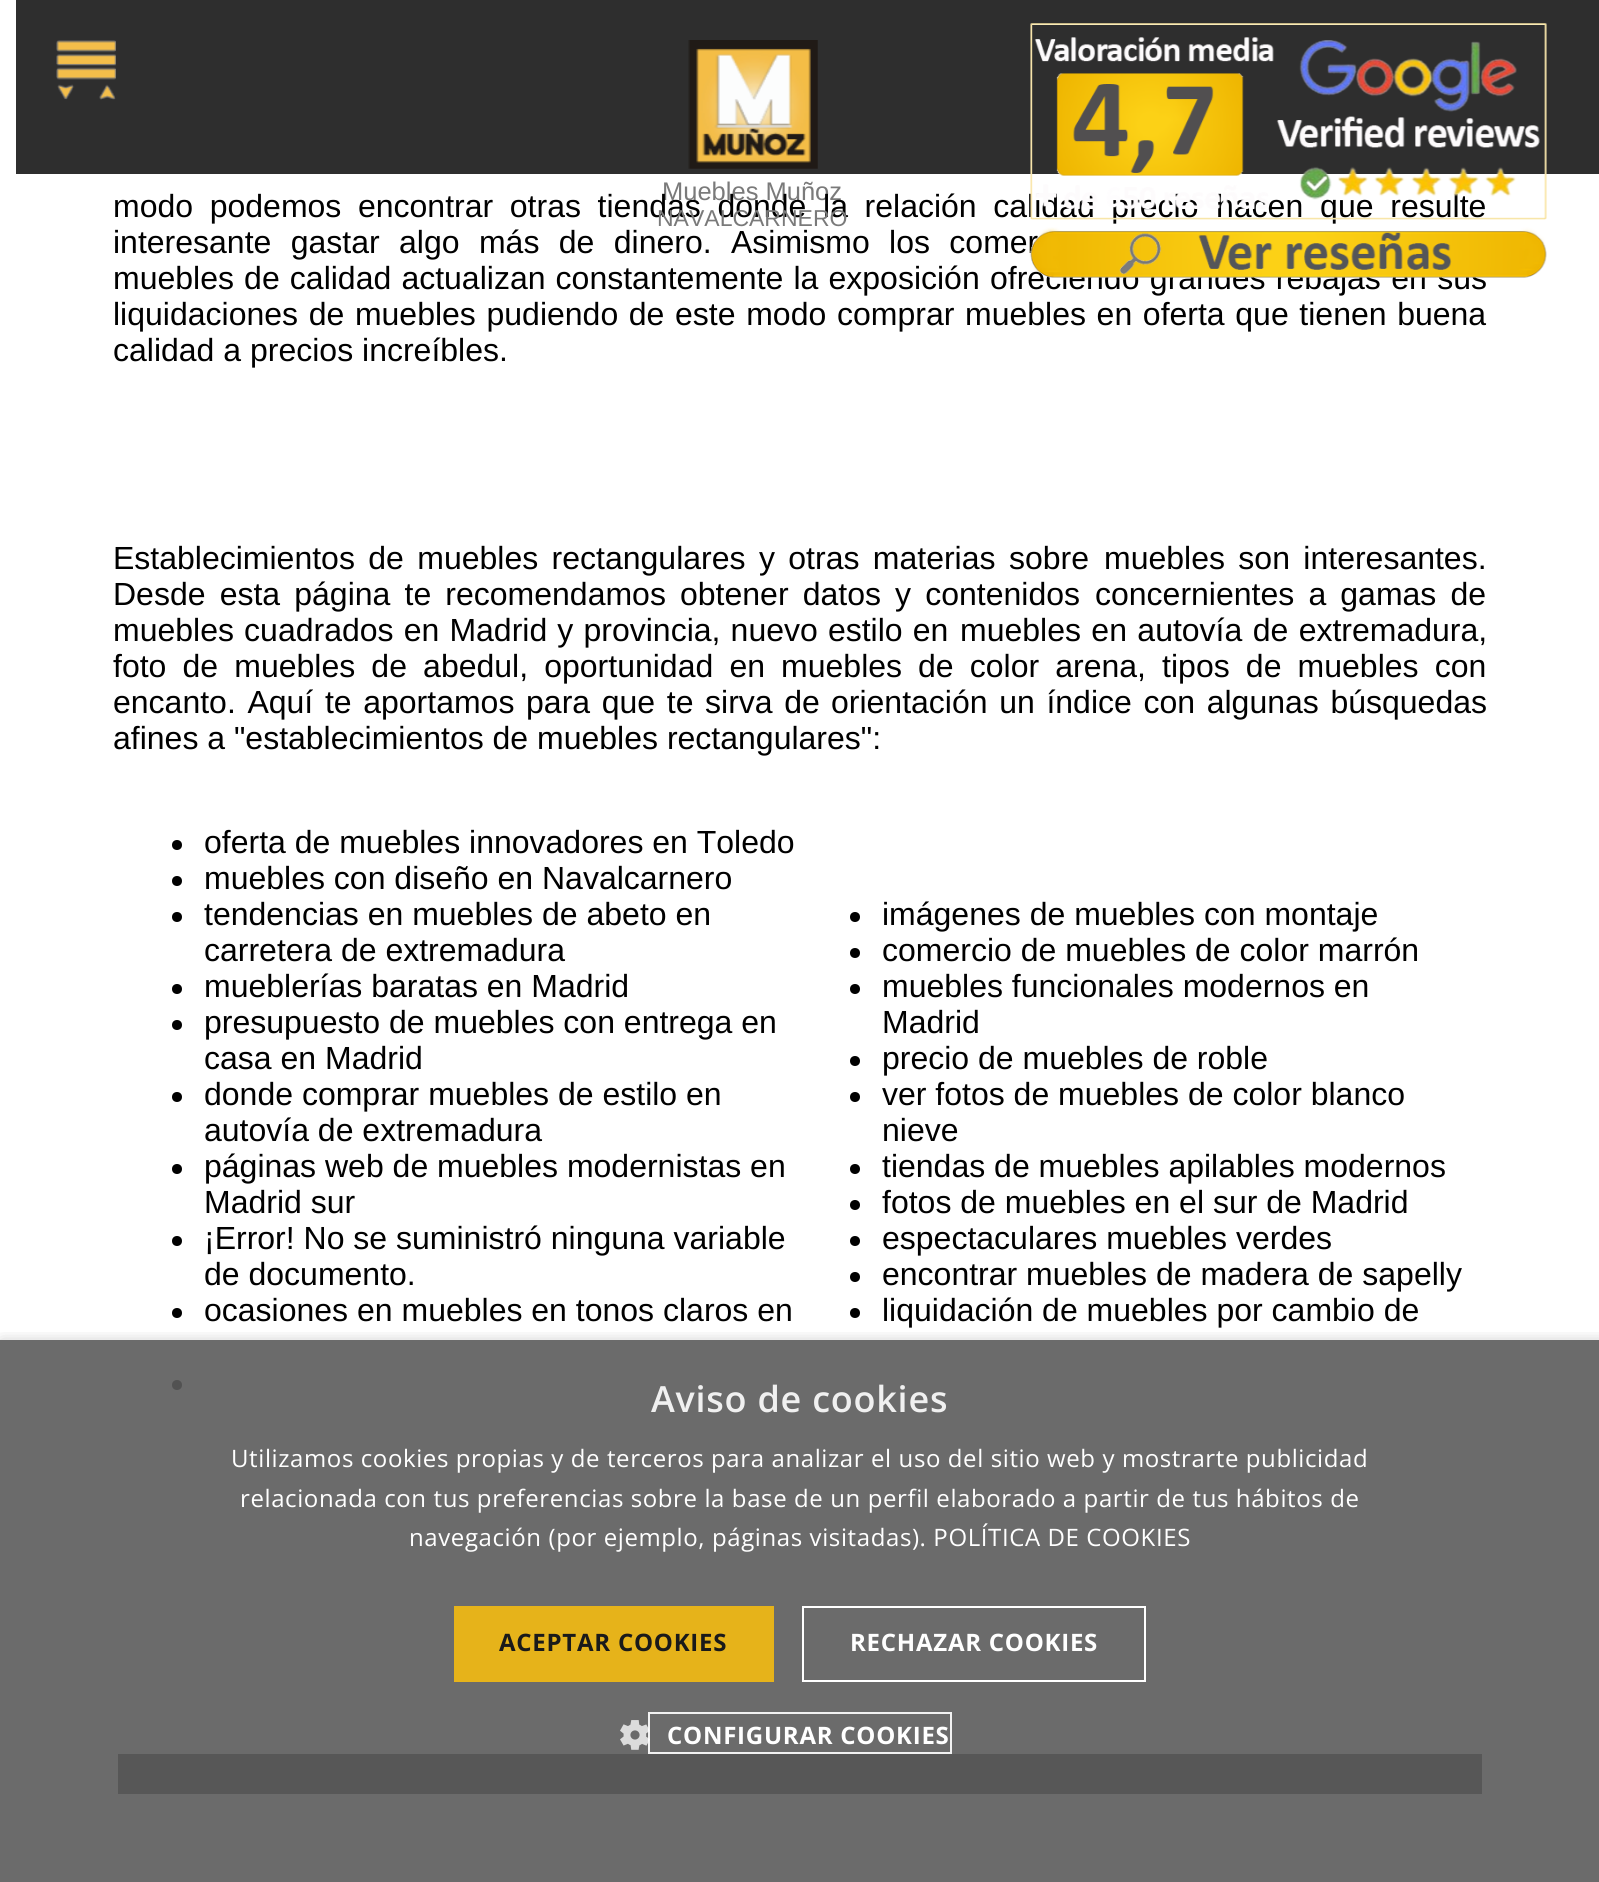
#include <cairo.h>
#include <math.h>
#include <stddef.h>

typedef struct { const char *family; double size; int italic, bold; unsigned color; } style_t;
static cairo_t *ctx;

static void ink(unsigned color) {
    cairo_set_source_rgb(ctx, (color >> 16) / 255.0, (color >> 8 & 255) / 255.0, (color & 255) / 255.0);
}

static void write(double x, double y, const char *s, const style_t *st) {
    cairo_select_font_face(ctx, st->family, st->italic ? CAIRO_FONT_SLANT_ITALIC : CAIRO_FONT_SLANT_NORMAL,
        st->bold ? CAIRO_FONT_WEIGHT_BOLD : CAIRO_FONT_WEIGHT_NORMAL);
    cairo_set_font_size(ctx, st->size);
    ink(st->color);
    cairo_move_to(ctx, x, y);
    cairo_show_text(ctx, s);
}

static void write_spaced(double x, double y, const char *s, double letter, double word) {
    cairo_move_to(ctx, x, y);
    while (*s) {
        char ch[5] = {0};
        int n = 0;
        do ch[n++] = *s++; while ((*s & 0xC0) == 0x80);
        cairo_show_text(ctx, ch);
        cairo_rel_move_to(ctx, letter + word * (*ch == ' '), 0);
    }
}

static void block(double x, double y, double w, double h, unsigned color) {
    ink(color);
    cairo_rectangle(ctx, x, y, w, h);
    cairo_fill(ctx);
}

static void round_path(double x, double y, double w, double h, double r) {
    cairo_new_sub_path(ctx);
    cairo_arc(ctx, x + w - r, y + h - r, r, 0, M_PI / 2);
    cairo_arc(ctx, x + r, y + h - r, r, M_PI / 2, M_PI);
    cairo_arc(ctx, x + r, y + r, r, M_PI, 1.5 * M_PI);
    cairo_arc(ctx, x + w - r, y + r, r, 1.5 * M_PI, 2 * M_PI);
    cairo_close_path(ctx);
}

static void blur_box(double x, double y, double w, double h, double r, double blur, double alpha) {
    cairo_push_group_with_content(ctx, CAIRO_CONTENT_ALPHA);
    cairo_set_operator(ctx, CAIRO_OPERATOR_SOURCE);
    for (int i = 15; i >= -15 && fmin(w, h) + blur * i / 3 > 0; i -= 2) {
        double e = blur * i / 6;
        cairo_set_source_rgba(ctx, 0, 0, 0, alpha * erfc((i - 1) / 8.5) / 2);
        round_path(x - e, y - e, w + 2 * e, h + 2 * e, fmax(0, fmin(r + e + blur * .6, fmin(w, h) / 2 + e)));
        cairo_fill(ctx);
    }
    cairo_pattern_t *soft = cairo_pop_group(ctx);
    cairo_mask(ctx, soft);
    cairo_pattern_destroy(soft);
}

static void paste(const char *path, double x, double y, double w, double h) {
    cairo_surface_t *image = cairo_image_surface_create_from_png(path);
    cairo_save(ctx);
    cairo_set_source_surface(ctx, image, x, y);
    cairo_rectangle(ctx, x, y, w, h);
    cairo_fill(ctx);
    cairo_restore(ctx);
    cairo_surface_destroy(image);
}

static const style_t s1 = {"Liberation Sans", 25.5, 0, 0, 0x7a7a7a};
static const style_t s2 = {"Liberation Sans", 23, 0, 0, 0x7a7a7a};
static const style_t s3 = {"Liberation Sans", 32, 0, 0, 0x000000};

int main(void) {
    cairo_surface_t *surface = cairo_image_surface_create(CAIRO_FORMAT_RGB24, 1599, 1882);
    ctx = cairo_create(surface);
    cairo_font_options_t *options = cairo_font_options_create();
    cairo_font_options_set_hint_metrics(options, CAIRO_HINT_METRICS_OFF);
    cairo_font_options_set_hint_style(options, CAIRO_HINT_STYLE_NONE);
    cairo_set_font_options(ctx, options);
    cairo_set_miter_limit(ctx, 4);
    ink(0xffffff);
    cairo_paint(ctx);
    block(16, 0, 1583, 174, 0x2e2e2e);
    paste("pic1.png", 56, 40, 60, 60);
    paste("pic2.png", 688, 40, 130, 129);
    write(662, 200, "Muebles Muñoz", &s1);
    cairo_set_font_size(ctx, 32);
    ink(0x000000);
    write_spaced(113, 217, "modo podemos encontrar otras tiendas donde la relación calidad precio", 0, 7.75);
    write(657, 226, "NAVALCARNERO", &s2);
    cairo_set_font_size(ctx, 32);
    ink(0x000000);
    write_spaced(1216, 217, "hacen que resulte", 0, 8);
    write_spaced(113, 253, "interesante gastar algo más de dinero. Asimismo los comer", 0, 10.5);
    write_spaced(990, 289, "ofreciendo grandes rebajas en sus", 0, 1.5);
    paste("pic3.png", 1029, 23, 518, 255);
    write_spaced(113, 289, "muebles de calidad actualizan constantemente la exposición", 0, 1.25);
    write_spaced(113, 325, "liquidaciones de muebles pudiendo de este modo", 0, 1.75);
    write_spaced(837, 325, "comprar muebles en oferta que tienen buena", 0, 1.75);
    write(113, 361, "calidad a precios increíbles.", &s3);
    write_spaced(113, 569, "Establecimientos de muebles rectangulares y otras materias sobre", 0, 4.5);
    write_spaced(1104, 569, "muebles son interesantes.", 0, 4.5);
    write_spaced(113, 605, "Desde esta página te recomendamos obtener datos y contenidos", 0, 5.25);
    write_spaced(1095, 605, "concernientes a gamas de", 0, 5.25);
    write_spaced(113, 641, "muebles cuadrados en Madrid y provincia, nuevo estilo en", 0, 1.25);
    write_spaced(960, 641, "muebles en autovía de extremadura,", 0, 1.5);
    write_spaced(113, 677, "foto de muebles de abedul, oportunidad en muebles", 0, 7.25);
    write_spaced(918, 677, "de color arena, tipos de muebles con", 0, 7.25);
    write_spaced(113, 713, "encanto. Aquí te aportamos para que te sirva de", 0, 2.75);
    write_spaced(831, 713, "orientación un índice con algunas búsquedas", 0, 2.75);
    write(113, 749, "afines a \"establecimientos de muebles rectangulares\":", &s3);
    cairo_new_path(ctx);
    cairo_arc(ctx, 177, 845, 5, 0, 2 * M_PI);
    cairo_fill(ctx);
    write(204, 853, "oferta de muebles innovadores en Toledo", &s3);
    cairo_new_path(ctx);
    cairo_arc(ctx, 177, 881, 5, 0, 2 * M_PI);
    cairo_fill(ctx);
    write(204, 889, "muebles con diseño en Navalcarnero", &s3);
    cairo_new_path(ctx);
    cairo_arc(ctx, 177, 917, 5, 0, 2 * M_PI);
    cairo_fill(ctx);
    write(204, 925, "tendencias en muebles de abeto en", &s3);
    write(204, 961, "carretera de extremadura", &s3);
    cairo_new_path(ctx);
    cairo_arc(ctx, 177, 989, 5, 0, 2 * M_PI);
    cairo_fill(ctx);
    write(204, 997, "mueblerías baratas en Madrid", &s3);
    cairo_new_path(ctx);
    cairo_arc(ctx, 177, 1025, 5, 0, 2 * M_PI);
    cairo_fill(ctx);
    write(204, 1033, "presupuesto de muebles con entrega en", &s3);
    write(204, 1069, "casa en Madrid", &s3);
    cairo_new_path(ctx);
    cairo_arc(ctx, 177, 1097, 5, 0, 2 * M_PI);
    cairo_fill(ctx);
    write(204, 1105, "donde comprar muebles de estilo en", &s3);
    write(204, 1141, "autovía de extremadura", &s3);
    cairo_new_path(ctx);
    cairo_arc(ctx, 177, 1169, 5, 0, 2 * M_PI);
    cairo_fill(ctx);
    write(204, 1177, "páginas web de muebles modernistas en", &s3);
    write(204, 1213, "Madrid sur", &s3);
    cairo_new_path(ctx);
    cairo_arc(ctx, 177, 1241, 5, 0, 2 * M_PI);
    cairo_fill(ctx);
    write(204, 1249, "¡Error! No se suministró ninguna variable", &s3);
    write(204, 1285, "de documento.", &s3);
    cairo_new_path(ctx);
    cairo_arc(ctx, 177, 1313, 5, 0, 2 * M_PI);
    cairo_fill(ctx);
    write(204, 1321, "ocasiones en muebles en tonos claros en", &s3);
    cairo_new_path(ctx);
    cairo_arc(ctx, 177, 1385, 5, 0, 2 * M_PI);
    cairo_fill(ctx);
    cairo_arc(ctx, 855, 917, 5, 0, 2 * M_PI);
    cairo_fill(ctx);
    write(882, 925, "imágenes de muebles con montaje", &s3);
    cairo_new_path(ctx);
    cairo_arc(ctx, 855, 953, 5, 0, 2 * M_PI);
    cairo_fill(ctx);
    write(882, 961, "comercio de muebles de color marrón", &s3);
    cairo_new_path(ctx);
    cairo_arc(ctx, 855, 989, 5, 0, 2 * M_PI);
    cairo_fill(ctx);
    write(882, 997, "muebles funcionales modernos en", &s3);
    write(882, 1033, "Madrid", &s3);
    cairo_new_path(ctx);
    cairo_arc(ctx, 855, 1061, 5, 0, 2 * M_PI);
    cairo_fill(ctx);
    write(882, 1069, "precio de muebles de roble", &s3);
    cairo_new_path(ctx);
    cairo_arc(ctx, 855, 1097, 5, 0, 2 * M_PI);
    cairo_fill(ctx);
    write(882, 1105, "ver fotos de muebles de color blanco", &s3);
    write(882, 1141, "nieve", &s3);
    cairo_new_path(ctx);
    cairo_arc(ctx, 855, 1169, 5, 0, 2 * M_PI);
    cairo_fill(ctx);
    write(882, 1177, "tiendas de muebles apilables modernos", &s3);
    cairo_new_path(ctx);
    cairo_arc(ctx, 855, 1205, 5, 0, 2 * M_PI);
    cairo_fill(ctx);
    write(882, 1213, "fotos de muebles en el sur de Madrid", &s3);
    cairo_new_path(ctx);
    cairo_arc(ctx, 855, 1241, 5, 0, 2 * M_PI);
    cairo_fill(ctx);
    write(882, 1249, "espectaculares muebles verdes", &s3);
    cairo_new_path(ctx);
    cairo_arc(ctx, 855, 1277, 5, 0, 2 * M_PI);
    cairo_fill(ctx);
    write(882, 1285, "encontrar muebles de madera de sapelly", &s3);
    cairo_new_path(ctx);
    cairo_arc(ctx, 855, 1313, 5, 0, 2 * M_PI);
    cairo_fill(ctx);
    write(882, 1321, "liquidación de muebles por cambio de", &s3);
    block(118, 1754, 1364, 40, 0x333333);
    cairo_save(ctx);
    cairo_rectangle(ctx, 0, 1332, 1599, 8);
    cairo_clip(ctx);
    ink(0x000000);
    blur_box(2, 1344, 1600, 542, 0, 8, 0.32);
    cairo_restore(ctx);
    cairo_set_source_rgba(ctx, 0.357, 0.357, 0.357, 0.9);
    cairo_rectangle(ctx, 0, 1340, 1599, 542);
    cairo_fill(ctx);
    cairo_select_font_face(ctx, "Open Sans SemiBold", CAIRO_FONT_SLANT_NORMAL, CAIRO_FONT_WEIGHT_NORMAL);
    cairo_set_font_size(ctx, 36);
    ink(0xf0f0f0);
    write_spaced(651, 1412, "Aviso de cookies", 0.75, 0);
    cairo_select_font_face(ctx, "Open Sans", CAIRO_FONT_SLANT_NORMAL, CAIRO_FONT_WEIGHT_NORMAL);
    cairo_set_font_size(ctx, 24);
    ink(0xffffff);
    write_spaced(231, 1467, "Utilizamos cookies propias y de terceros para analizar el uso del sitio web y mostrarte publicidad", 0.6, 0);
    write_spaced(240, 1507, "relacionada con tus preferencias sobre la base de un perfil elaborado a partir de tus hábitos de", 0.6, 0);
    write_spaced(409, 1546, "navegación (por ejemplo, páginas visitadas). POLÍTICA DE COOKIES", 0.6, 0);
    block(454, 1606, 320, 76, 0xe6b31a);
    cairo_select_font_face(ctx, "Open Sans", CAIRO_FONT_SLANT_NORMAL, CAIRO_FONT_WEIGHT_BOLD);
    ink(0x1a1a1a);
    write_spaced(499, 1651, "ACEPTAR COOKIES", 0.75, 0);
    cairo_rectangle(ctx, 803, 1607, 342, 74);
    ink(0xffffff);
    cairo_stroke(ctx);
    write_spaced(850, 1651, "RECHAZAR COOKIES", 0.75, 0);
    cairo_rectangle(ctx, 649, 1713, 302, 40);
    ink(0xf2f2f2);
    cairo_stroke(ctx);
    paste("pic4.png", 620, 1720, 30, 30);
    ink(0xffffff);
    write_spaced(667, 1744, "CONFIGURAR COOKIES", 0.75, 0);
    cairo_surface_write_to_png(surface, "screenshot.png");
    cairo_font_options_destroy(options);
    cairo_destroy(ctx);
    cairo_surface_destroy(surface);
    return 0;
}
